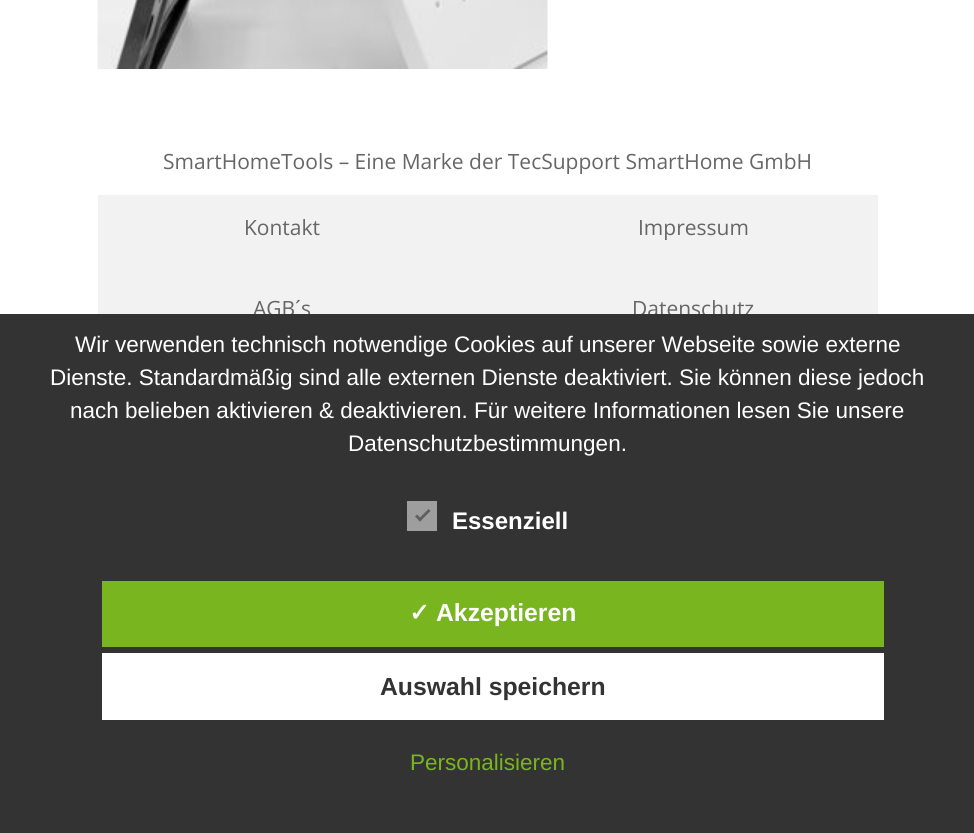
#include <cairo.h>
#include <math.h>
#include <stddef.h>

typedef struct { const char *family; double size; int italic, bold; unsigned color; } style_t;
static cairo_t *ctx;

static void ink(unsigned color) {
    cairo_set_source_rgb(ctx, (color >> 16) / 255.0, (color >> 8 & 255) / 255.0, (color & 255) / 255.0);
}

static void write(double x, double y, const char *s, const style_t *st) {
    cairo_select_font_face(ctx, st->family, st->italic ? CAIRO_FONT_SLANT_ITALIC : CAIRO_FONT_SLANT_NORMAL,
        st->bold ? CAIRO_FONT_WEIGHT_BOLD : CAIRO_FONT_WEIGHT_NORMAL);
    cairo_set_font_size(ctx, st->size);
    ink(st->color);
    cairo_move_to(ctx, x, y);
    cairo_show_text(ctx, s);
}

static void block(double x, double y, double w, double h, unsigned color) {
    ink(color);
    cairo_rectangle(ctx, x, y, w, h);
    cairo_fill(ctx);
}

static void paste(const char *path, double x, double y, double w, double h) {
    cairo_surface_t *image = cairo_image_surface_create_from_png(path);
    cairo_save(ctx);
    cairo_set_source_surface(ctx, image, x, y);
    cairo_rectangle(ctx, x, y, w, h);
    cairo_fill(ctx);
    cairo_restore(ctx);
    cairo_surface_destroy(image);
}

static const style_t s1 = {"Open Sans", 21, 0, 0, 0x666666};
static const style_t s2 = {"Liberation Sans", 22.5, 0, 0, 0xffffff};
static const style_t s3 = {"Liberation Sans", 24, 0, 1, 0xffffff};
static const style_t s4 = {"DejaVu Sans", 24.75, 0, 1, 0xffffff};
static const style_t s5 = {"Liberation Sans", 24.75, 0, 1, 0xffffff};
static const style_t s6 = {"Liberation Sans", 24.75, 0, 1, 0x333333};
static const style_t s7 = {"Liberation Sans", 22.5, 0, 0, 0x79b51f};

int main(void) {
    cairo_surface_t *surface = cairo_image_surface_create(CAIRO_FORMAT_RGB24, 974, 833);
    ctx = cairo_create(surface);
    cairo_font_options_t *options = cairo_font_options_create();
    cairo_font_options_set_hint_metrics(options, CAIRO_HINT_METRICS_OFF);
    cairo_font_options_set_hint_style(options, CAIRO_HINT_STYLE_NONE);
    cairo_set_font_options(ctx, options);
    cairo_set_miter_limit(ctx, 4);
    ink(0xffffff);
    cairo_paint(ctx);
    paste("pic1.png", 97, 0, 451, 69);
    write(163, 169, "SmartHomeTools – Eine Marke der TecSupport SmartHome GmbH", &s1);
    block(98, 195, 780, 119, 0xf2f2f2);
    write(244, 235, "Kontakt", &s1);
    write(638, 235, "Impressum", &s1);
    write(253, 316, "AGB´s", &s1);
    write(632, 316, "Datenschutz", &s1);
    block(0, 314, 974, 519, 0x333333);
    write(75, 352, "Wir verwenden technisch notwendige Cookies auf unserer Webseite sowie externe", &s2);
    write(50, 385, "Dienste. Standardmäßig sind alle externen Dienste deaktiviert. Sie können diese jedoch", &s2);
    write(70, 418, "nach belieben aktivieren & deaktivieren. Für weitere Informationen lesen Sie unsere", &s2);
    write(348, 451, "Datenschutzbestimmungen.", &s2);
    block(407, 501, 30, 30, 0x9e9e9e);
    ink(0x5e5e5e);
    cairo_new_path(ctx);
    cairo_move_to(ctx, 428.5, 509);
    cairo_line_to(ctx, 430.5, 511);
    cairo_line_to(ctx, 420, 521.5);
    cairo_line_to(ctx, 418, 519.5);
    cairo_close_path(ctx);
    cairo_fill(ctx);
    cairo_new_path(ctx);
    cairo_move_to(ctx, 417, 514.5);
    cairo_line_to(ctx, 422, 519.5);
    cairo_line_to(ctx, 420, 521.5);
    cairo_line_to(ctx, 415, 516.5);
    cairo_close_path(ctx);
    cairo_fill(ctx);
    write(452, 529, "Essenziell", &s3);
    block(102, 581, 782, 66, 0x79b51f);
    write(409, 621, "✓", &s4);
    write(436, 621, "Akzeptieren", &s5);
    block(102, 653, 782, 67, 0xffffff);
    write(380, 695, "Auswahl speichern", &s6);
    write(410, 770, "Personalisieren", &s7);
    cairo_surface_write_to_png(surface, "screenshot.png");
    cairo_font_options_destroy(options);
    cairo_destroy(ctx);
    cairo_surface_destroy(surface);
    return 0;
}
